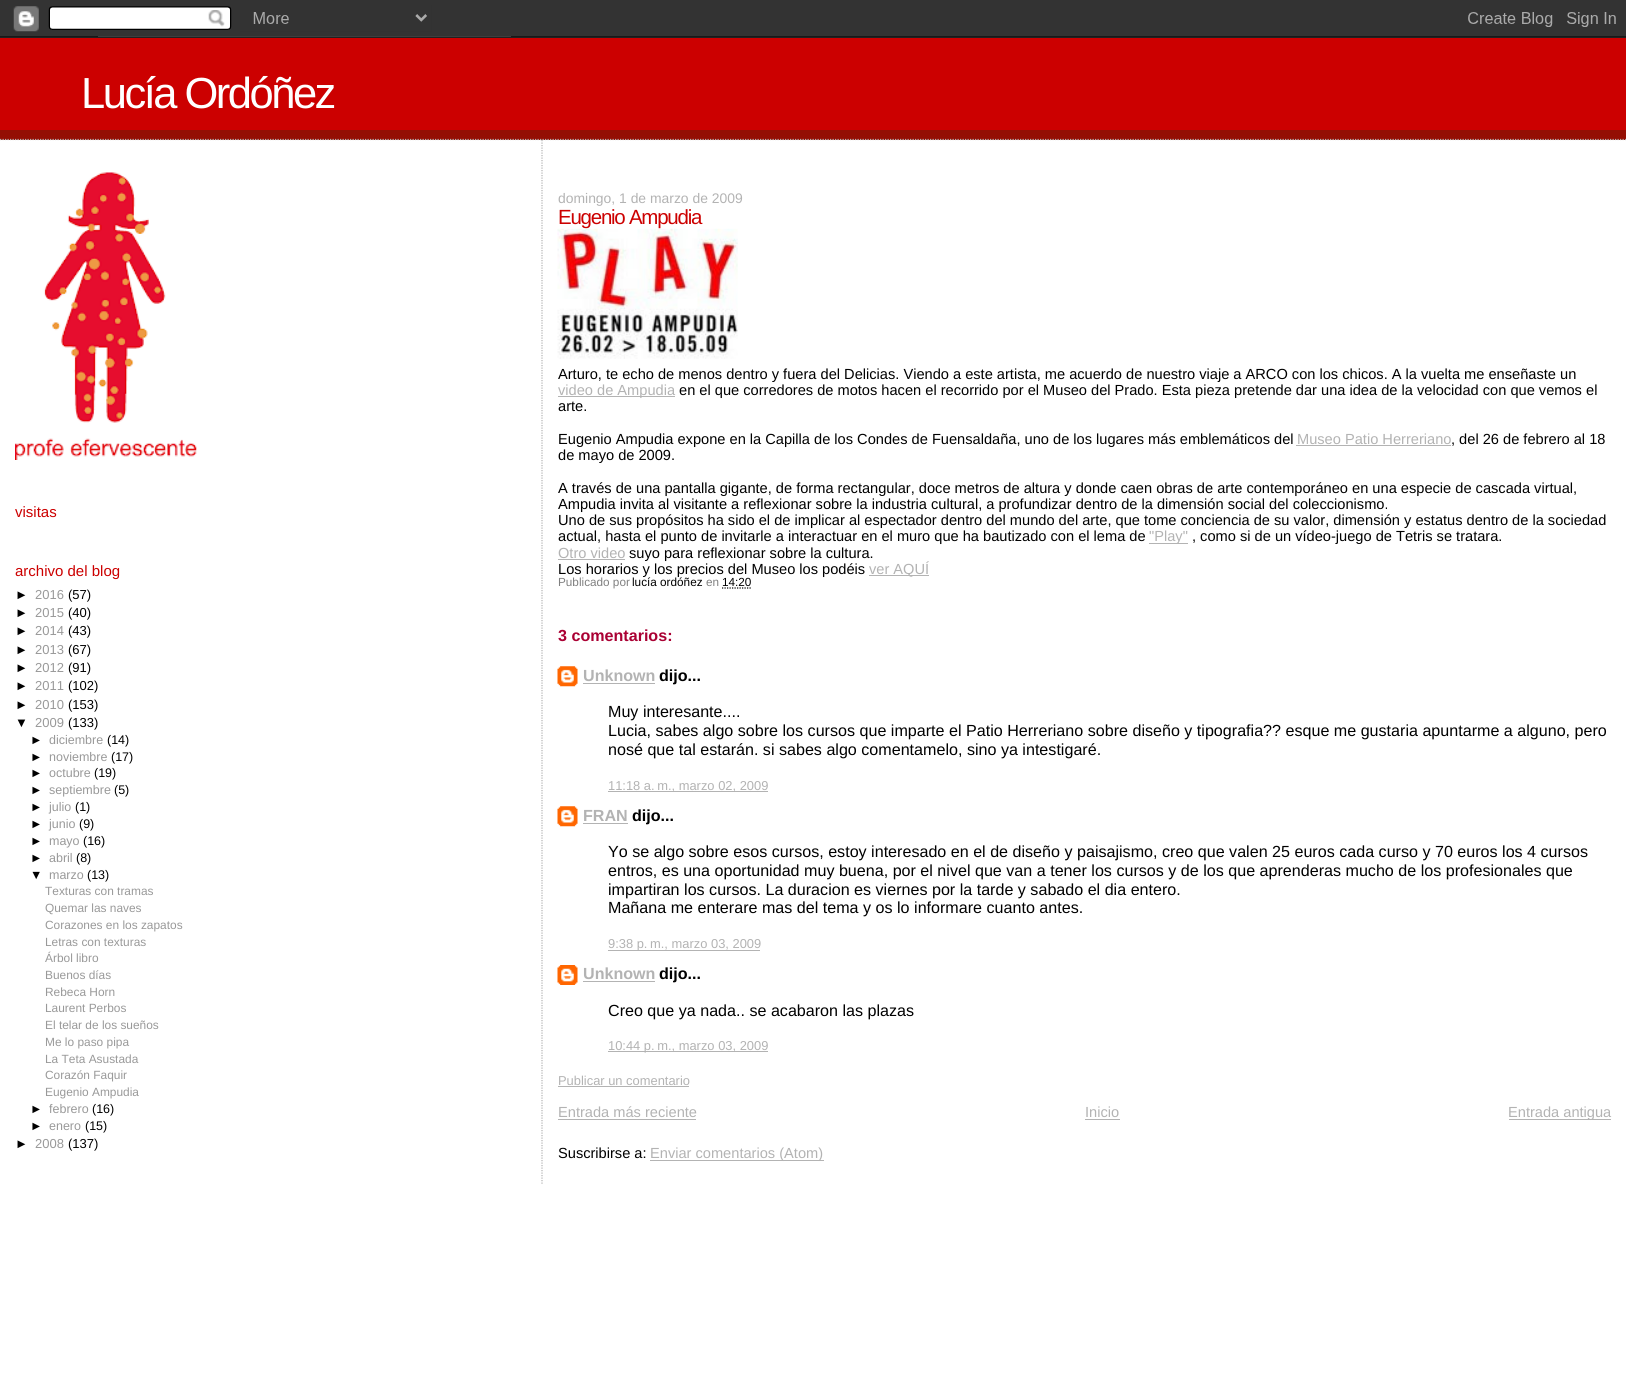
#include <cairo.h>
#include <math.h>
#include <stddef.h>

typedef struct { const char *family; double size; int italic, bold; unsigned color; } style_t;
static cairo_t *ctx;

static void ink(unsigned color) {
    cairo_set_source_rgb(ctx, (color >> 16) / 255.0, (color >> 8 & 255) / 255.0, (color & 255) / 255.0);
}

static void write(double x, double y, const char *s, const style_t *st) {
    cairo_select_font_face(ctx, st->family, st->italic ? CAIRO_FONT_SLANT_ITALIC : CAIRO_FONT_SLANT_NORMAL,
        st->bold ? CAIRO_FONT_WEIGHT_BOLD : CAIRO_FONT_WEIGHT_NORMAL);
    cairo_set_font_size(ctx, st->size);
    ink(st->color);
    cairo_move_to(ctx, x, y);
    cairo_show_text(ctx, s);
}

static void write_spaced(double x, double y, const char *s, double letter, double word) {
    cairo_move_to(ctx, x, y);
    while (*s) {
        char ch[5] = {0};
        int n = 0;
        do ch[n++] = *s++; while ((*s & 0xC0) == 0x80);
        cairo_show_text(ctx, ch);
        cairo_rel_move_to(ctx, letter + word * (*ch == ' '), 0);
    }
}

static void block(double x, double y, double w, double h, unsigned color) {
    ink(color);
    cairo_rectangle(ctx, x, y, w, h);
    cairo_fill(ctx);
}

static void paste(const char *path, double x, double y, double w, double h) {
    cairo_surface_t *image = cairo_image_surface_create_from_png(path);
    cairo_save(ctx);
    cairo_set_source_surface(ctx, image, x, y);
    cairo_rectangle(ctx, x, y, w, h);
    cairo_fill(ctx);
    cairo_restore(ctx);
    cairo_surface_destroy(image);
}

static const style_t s1 = {"Liberation Sans", 15, 0, 0, 0xcc0000};
static const style_t s2 = {"Liberation Sans", 13, 0, 0, 0x000000};
static const style_t s3 = {"Liberation Sans", 13, 0, 0, 0x999999};
static const style_t s4 = {"Liberation Sans", 12.5, 0, 0, 0x000000};
static const style_t s5 = {"Liberation Sans", 12.5, 0, 0, 0x999999};
static const style_t s6 = {"Liberation Sans", 11.9, 0, 0, 0x999999};
static const style_t s7 = {"Liberation Sans", 13.9, 0, 0, 0xb3b3b3};
static const style_t s8 = {"Liberation Sans", 14.62, 0, 0, 0x000000};
static const style_t s9 = {"Liberation Sans", 14.62, 0, 0, 0xb3b3b3};
static const style_t s10 = {"Liberation Sans", 11.75, 0, 0, 0x808080};
static const style_t s11 = {"Liberation Sans", 11.75, 0, 0, 0x000000};
static const style_t s12 = {"Liberation Sans", 16.1, 0, 1, 0xaa0033};
static const style_t s13 = {"Liberation Sans", 16.1, 0, 1, 0xb3b3b3};
static const style_t s14 = {"Liberation Sans", 16.1, 0, 1, 0x000000};
static const style_t s15 = {"Liberation Sans", 16.1, 0, 0, 0x000000};
static const style_t s16 = {"Liberation Sans", 12.9, 0, 0, 0xb3b3b3};

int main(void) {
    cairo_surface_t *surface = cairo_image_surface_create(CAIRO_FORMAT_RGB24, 1626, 1382);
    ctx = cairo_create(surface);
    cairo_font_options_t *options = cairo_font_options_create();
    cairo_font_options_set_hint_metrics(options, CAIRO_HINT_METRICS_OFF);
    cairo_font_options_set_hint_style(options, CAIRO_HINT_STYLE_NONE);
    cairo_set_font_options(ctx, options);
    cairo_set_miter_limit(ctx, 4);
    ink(0xffffff);
    cairo_paint(ctx);
    paste("pic1.png", 0, 0, 1626, 38);
    block(0, 130, 1626, 10, 0x940f04);
    cairo_new_path(ctx);
    cairo_move_to(ctx, 0, 139.5);
    cairo_line_to(ctx, 1626, 139.5);
    ink(0xb3b3b3);
    cairo_set_line_width(ctx, 1.2);
    cairo_set_dash(ctx, (double[]){1.25, 1.25}, 2, 0);
    cairo_stroke(ctx);
    block(0, 38, 1626, 92, 0xcc0000);
    cairo_select_font_face(ctx, "Liberation Sans", CAIRO_FONT_SLANT_NORMAL, CAIRO_FONT_WEIGHT_NORMAL);
    cairo_set_font_size(ctx, 43.5);
    ink(0xffffff);
    write_spaced(81, 108, "Lucía Ordóñez", -2.5, 0);
    paste("pic2.png", 15, 172, 182, 288);
    write(15, 517, "visitas", &s1);
    write(15, 576, "archivo del blog", &s1);
    write(15, 599, "►", &s2);
    write(35, 599, "2016", &s3);
    write(68, 599, "(57)", &s2);
    write(15, 617, "►", &s2);
    write(35, 617, "2015", &s3);
    write(68, 617, "(40)", &s2);
    write(15, 635, "►", &s2);
    write(35, 635, "2014", &s3);
    write(68, 635, "(43)", &s2);
    write(15, 654, "►", &s2);
    write(35, 654, "2013", &s3);
    write(68, 654, "(67)", &s2);
    write(15, 672, "►", &s2);
    write(35, 672, "2012", &s3);
    write(68, 672, "(91)", &s2);
    write(15, 690, "►", &s2);
    write(35, 690, "2011", &s3);
    write(68, 690, "(102)", &s2);
    write(15, 709, "►", &s2);
    write(35, 709, "2010", &s3);
    write(68, 709, "(153)", &s2);
    write(15, 727, "▼", &s2);
    write(35, 727, "2009", &s3);
    write(68, 727, "(133)", &s2);
    write(30, 744, "►", &s4);
    write(49, 744, "diciembre", &s5);
    write(107, 744, "(14)", &s4);
    write(30, 761, "►", &s4);
    write(49, 761, "noviembre", &s5);
    write(111, 761, "(17)", &s4);
    write(30, 777, "►", &s4);
    write(49, 777, "octubre", &s5);
    write(94, 777, "(19)", &s4);
    write(30, 794, "►", &s4);
    write(49, 794, "septiembre", &s5);
    write(114, 794, "(5)", &s4);
    write(30, 811, "►", &s4);
    write(49, 811, "julio", &s5);
    write(75, 811, "(1)", &s4);
    write(30, 828, "►", &s4);
    write(49, 828, "junio", &s5);
    write(79, 828, "(9)", &s4);
    write(30, 845, "►", &s4);
    write(49, 845, "mayo", &s5);
    write(83, 845, "(16)", &s4);
    write(30, 862, "►", &s4);
    write(49, 862, "abril", &s5);
    write(76, 862, "(8)", &s4);
    write(30, 879, "▼", &s4);
    write(49, 879, "marzo", &s5);
    write(87, 879, "(13)", &s4);
    write(45, 895, "Texturas con tramas", &s6);
    write(45, 912, "Quemar las naves", &s6);
    write(45, 929, "Corazones en los zapatos", &s6);
    write(45, 946, "Letras con texturas", &s6);
    write(45, 962, "Árbol libro", &s6);
    write(45, 979, "Buenos días", &s6);
    write(45, 996, "Rebeca Horn", &s6);
    write(45, 1012, "Laurent Perbos", &s6);
    write(45, 1029, "El telar de los sueños", &s6);
    write(45, 1046, "Me lo paso pipa", &s6);
    write(45, 1063, "La Teta Asustada", &s6);
    write(45, 1079, "Corazón Faquir", &s6);
    write(45, 1096, "Eugenio Ampudia", &s6);
    write(30, 1113, "►", &s4);
    write(49, 1113, "febrero", &s5);
    write(92, 1113, "(16)", &s4);
    write(30, 1130, "►", &s4);
    write(49, 1130, "enero", &s5);
    write(85, 1130, "(15)", &s4);
    write(15, 1148, "►", &s2);
    write(35, 1148, "2008", &s3);
    write(68, 1148, "(137)", &s2);
    cairo_new_path(ctx);
    cairo_move_to(ctx, 542, 140);
    cairo_line_to(ctx, 542, 1184);
    ink(0xb3b3b3);
    cairo_stroke(ctx);
    write(558, 203, "domingo, 1 de marzo de 2009", &s7);
    cairo_set_font_size(ctx, 20.5);
    ink(0xcc0000);
    write_spaced(558, 224, "Eugenio Ampudia", -1.25, 0);
    paste("pic3.png", 557, 228, 181, 131);
    write(558, 379, "Arturo, te echo de menos dentro y fuera del Delicias. Viendo a este artista, me acuerdo de nuestro viaje a ARCO con los chicos. A la vuelta me enseñaste un", &s8);
    block(558, 396, 117, 1, 0xb3b3b3);
    write(558, 395, "video de Ampudia", &s9);
    write(679, 395, "en el que corredores de motos hacen el recorrido por el Museo del Prado. Esta pieza pretende dar una idea de la velocidad con que vemos el", &s8);
    write(558, 411, "arte.", &s8);
    write(558, 444, "Eugenio Ampudia expone en la Capilla de los Condes de Fuensaldaña, uno de los lugares más emblemáticos del", &s8);
    write(1297, 444, "Museo Patio Herreriano", &s9);
    block(1296, 445, 155, 1, 0xb3b3b3);
    write(1451, 444, ", del 26 de febrero al 18", &s8);
    write(558, 460, "de mayo de 2009.", &s8);
    write(558, 493, "A través de una pantalla gigante, de forma rectangular, doce metros de altura y donde caen obras de arte contemporáneo en una especie de cascada virtual,", &s8);
    write(558, 509, "Ampudia invita al visitante a reflexionar sobre la industria cultural, a profundizar dentro de la dimensión social del coleccionismo.", &s8);
    write(558, 525, "Uno de sus propósitos ha sido el de implicar al espectador dentro del mundo del arte, que tome conciencia de su valor, dimensión y estatus dentro de la sociedad", &s8);
    write(558, 541, "actual, hasta el punto de invitarle a interactuar en el muro que ha bautizado con el lema de", &s8);
    block(1149, 543, 39, 1, 0xb3b3b3);
    write(1149, 541, "\"Play\"", &s9);
    write(1192, 541, ", como si de un vídeo-juego de Tetris se tratara.", &s8);
    write(558, 558, "Otro video", &s9);
    block(558, 559, 67, 1, 0xb3b3b3);
    write(629, 558, "suyo para reflexionar sobre la cultura.", &s8);
    write(558, 574, "Los horarios y los precios del Museo los podéis", &s8);
    block(869, 575, 60, 1, 0xb3b3b3);
    write(869, 574, "ver AQUÍ", &s9);
    write(558, 586, "Publicado por", &s10);
    write(632, 586, "lucía ordóñez", &s11);
    write(706, 586, "en", &s10);
    write(722, 586, "14:20", &s11);
    cairo_new_path(ctx);
    cairo_move_to(ctx, 722, 588);
    cairo_line_to(ctx, 751, 588);
    cairo_stroke(ctx);
    write(558, 641, "3 comentarios:", &s12);
    paste("pic4.png", 557, 666, 21, 21);
    write(583, 681, "Unknown", &s13);
    block(583, 683, 72, 1, 0xb3b3b3);
    write(659, 681, "dijo...", &s14);
    write(608, 717, "Muy interesante....", &s15);
    write(608, 736, "Lucia, sabes algo sobre los cursos que imparte el Patio Herreriano sobre diseño y tipografia?\077 esque me gustaria apuntarme a alguno, pero", &s15);
    write(608, 755, "nosé que tal estarán. si sabes algo comentamelo, sino ya intestigaré.", &s15);
    block(608, 791, 160, 1, 0xb3b3b3);
    write(608, 790, "11:18 a. m., marzo 02, 2009", &s16);
    paste("pic4.png", 557, 806, 21, 21);
    write(583, 821, "FRAN", &s13);
    block(583, 823, 45, 1, 0xb3b3b3);
    write(632, 821, "dijo...", &s14);
    write(608, 857, "Yo se algo sobre esos cursos, estoy interesado en el de diseño y paisajismo, creo que valen 25 euros cada curso y 70 euros los 4 cursos", &s15);
    write(608, 876, "entros, es una oportunidad muy buena, por el nivel que van a tener los cursos y de los que aprenderas mucho de los profesionales que", &s15);
    write(608, 895, "impartiran los cursos. La duracion es viernes por la tarde y sabado el dia entero.", &s15);
    write(608, 913, "Mañana me enterare mas del tema y os lo informare cuanto antes.", &s15);
    block(608, 950, 152, 1, 0xb3b3b3);
    write(608, 948, "9:38 p. m., marzo 03, 2009", &s16);
    paste("pic5.png", 557, 965, 21, 20);
    write(583, 979, "Unknown", &s13);
    block(583, 981, 72, 1, 0xb3b3b3);
    write(659, 979, "dijo...", &s14);
    write(608, 1016, "Creo que ya nada.. se acabaron las plazas", &s15);
    block(608, 1051, 160, 1, 0xb3b3b3);
    write(608, 1050, "10:44 p. m., marzo 03, 2009", &s16);
    write(558, 1085, "Publicar un comentario", &s16);
    block(558, 1086, 131, 1, 0xb3b3b3);
    write(558, 1117, "Entrada más reciente", &s9);
    block(558, 1119, 138, 1, 0xb3b3b3);
    write(1085, 1117, "Inicio", &s9);
    block(1085, 1119, 35, 1, 0xb3b3b3);
    block(1509, 1119, 102, 1, 0xb3b3b3);
    write(1508, 1117, "Entrada antigua", &s9);
    write(558, 1158, "Suscribirse a:", &s8);
    block(650, 1160, 174, 1, 0xb3b3b3);
    write(650, 1158, "Enviar comentarios (Atom)", &s9);
    cairo_surface_write_to_png(surface, "screenshot.png");
    cairo_font_options_destroy(options);
    cairo_destroy(ctx);
    cairo_surface_destroy(surface);
    return 0;
}
